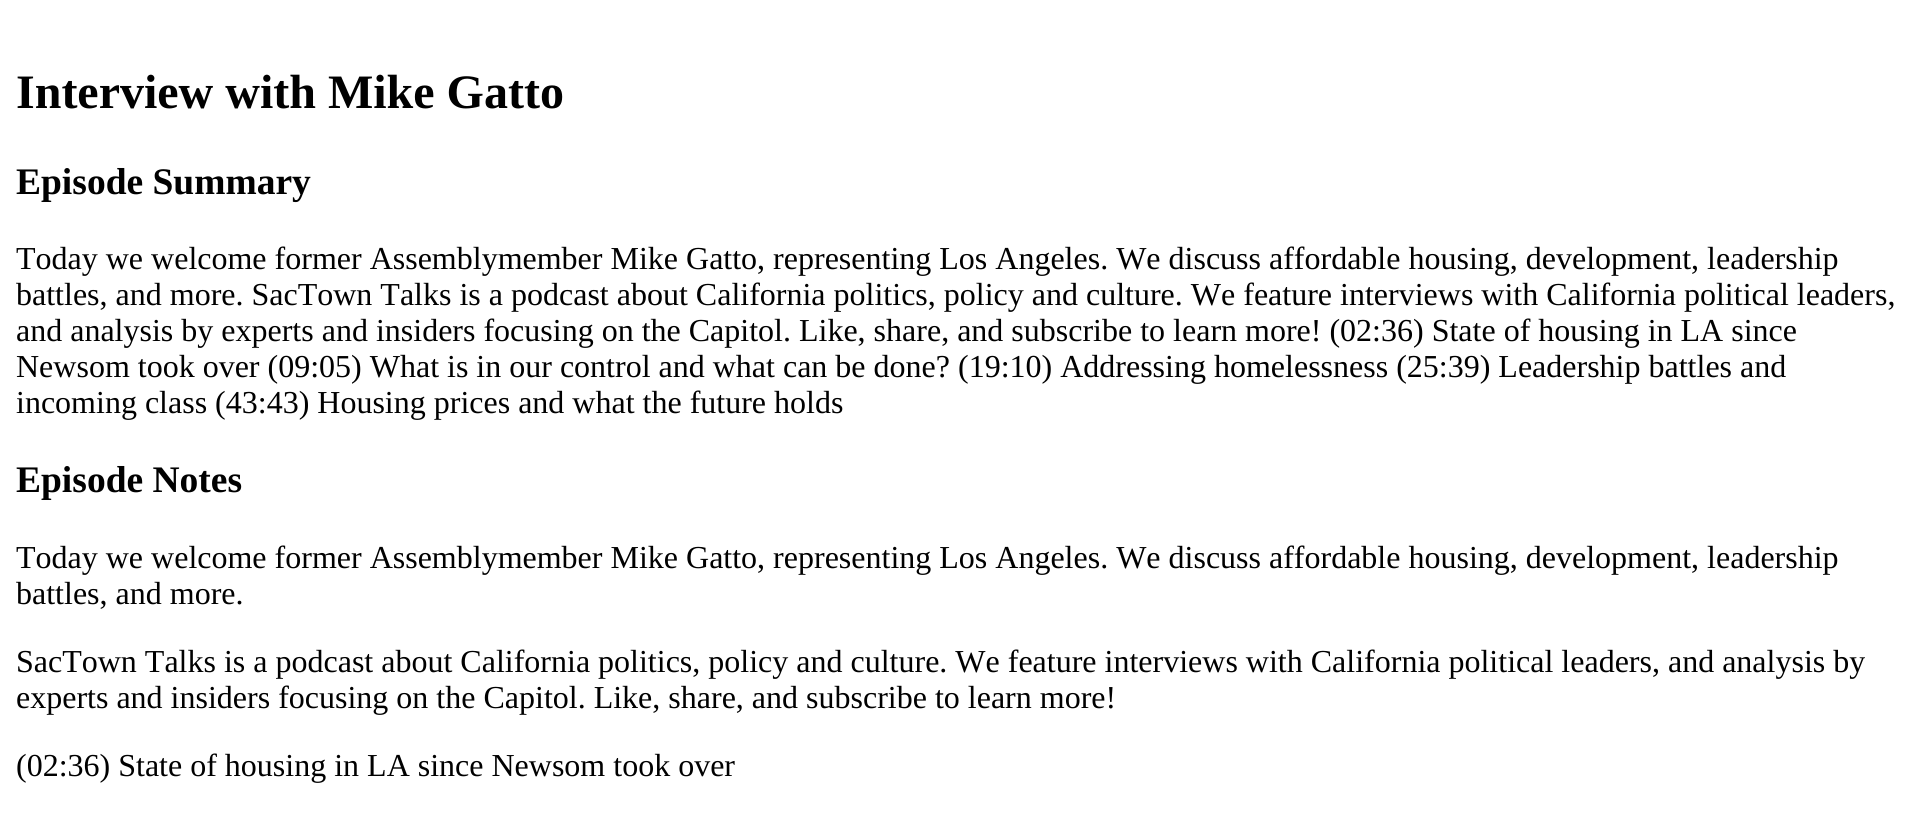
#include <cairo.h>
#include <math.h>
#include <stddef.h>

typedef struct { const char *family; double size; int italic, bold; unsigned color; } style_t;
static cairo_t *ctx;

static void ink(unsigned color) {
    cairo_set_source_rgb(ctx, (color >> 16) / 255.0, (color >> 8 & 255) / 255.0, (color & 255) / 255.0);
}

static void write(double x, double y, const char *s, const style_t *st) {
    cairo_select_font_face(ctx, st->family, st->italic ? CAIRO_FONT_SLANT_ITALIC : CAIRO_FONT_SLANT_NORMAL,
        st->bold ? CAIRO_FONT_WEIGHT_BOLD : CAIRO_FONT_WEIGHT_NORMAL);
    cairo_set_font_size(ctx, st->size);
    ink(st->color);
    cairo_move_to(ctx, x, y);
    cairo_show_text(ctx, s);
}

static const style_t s1 = {"Liberation Serif", 48, 0, 1, 0x000000};
static const style_t s2 = {"Liberation Serif", 37.5, 0, 1, 0x000000};
static const style_t s3 = {"Liberation Serif", 32, 0, 0, 0x000000};

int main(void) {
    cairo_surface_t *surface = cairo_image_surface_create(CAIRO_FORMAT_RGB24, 1918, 828);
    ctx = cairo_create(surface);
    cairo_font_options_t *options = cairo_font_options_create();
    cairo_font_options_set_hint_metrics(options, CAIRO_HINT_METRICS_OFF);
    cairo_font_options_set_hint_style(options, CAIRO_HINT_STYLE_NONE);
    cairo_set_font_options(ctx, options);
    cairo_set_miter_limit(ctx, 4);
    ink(0xffffff);
    cairo_paint(ctx);
    write(16, 108, "Interview with Mike Gatto", &s1);
    write(16, 194, "Episode Summary", &s2);
    write(16, 269, "Today we welcome former Assemblymember Mike Gatto, representing Los Angeles. We discuss affordable housing, development, leadership", &s3);
    write(16, 305, "battles, and more. SacTown Talks is a podcast about California politics, policy and culture. We feature interviews with California political leaders,", &s3);
    write(16, 341, "and analysis by experts and insiders focusing on the Capitol. Like, share, and subscribe to learn more! (02:36) State of housing in LA since", &s3);
    write(16, 377, "Newsom took over (09:05) What is in our control and what can be done? (19:10) Addressing homelessness (25:39) Leadership battles and", &s3);
    write(16, 413, "incoming class (43:43) Housing prices and what the future holds", &s3);
    write(16, 492, "Episode Notes", &s2);
    write(16, 568, "Today we welcome former Assemblymember Mike Gatto, representing Los Angeles. We discuss affordable housing, development, leadership", &s3);
    write(16, 604, "battles, and more.", &s3);
    write(16, 672, "SacTown Talks is a podcast about California politics, policy and culture. We feature interviews with California political leaders, and analysis by", &s3);
    write(16, 708, "experts and insiders focusing on the Capitol. Like, share, and subscribe to learn more!", &s3);
    write(16, 776, "(02:36) State of housing in LA since Newsom took over", &s3);
    cairo_surface_write_to_png(surface, "screenshot.png");
    cairo_font_options_destroy(options);
    cairo_destroy(ctx);
    cairo_surface_destroy(surface);
    return 0;
}
